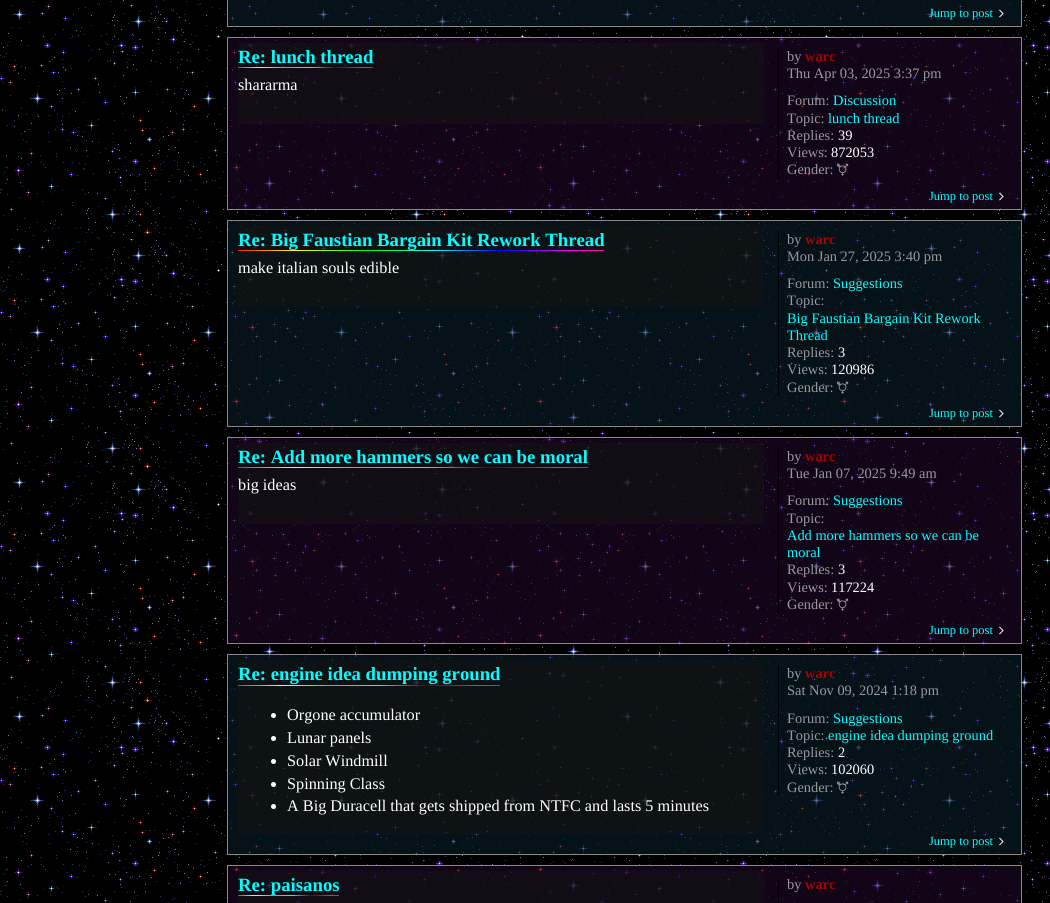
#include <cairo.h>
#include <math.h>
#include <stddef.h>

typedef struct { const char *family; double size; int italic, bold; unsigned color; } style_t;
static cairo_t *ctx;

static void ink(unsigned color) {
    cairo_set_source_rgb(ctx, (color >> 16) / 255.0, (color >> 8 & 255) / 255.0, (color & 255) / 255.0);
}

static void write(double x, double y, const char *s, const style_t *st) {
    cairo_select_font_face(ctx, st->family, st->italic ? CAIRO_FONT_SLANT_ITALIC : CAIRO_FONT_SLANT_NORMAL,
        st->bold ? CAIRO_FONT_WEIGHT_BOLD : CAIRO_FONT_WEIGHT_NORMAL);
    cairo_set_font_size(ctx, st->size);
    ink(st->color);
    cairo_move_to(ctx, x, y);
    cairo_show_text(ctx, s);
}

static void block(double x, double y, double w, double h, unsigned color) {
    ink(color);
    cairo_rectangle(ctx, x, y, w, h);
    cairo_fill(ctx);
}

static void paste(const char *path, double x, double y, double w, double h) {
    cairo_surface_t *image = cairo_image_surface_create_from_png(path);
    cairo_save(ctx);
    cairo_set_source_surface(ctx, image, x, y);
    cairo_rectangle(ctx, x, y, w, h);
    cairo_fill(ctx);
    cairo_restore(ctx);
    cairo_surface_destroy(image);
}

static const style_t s1 = {"Liberation Serif", 12.5, 0, 0, 0x00ffff};
static const style_t s2 = {"Liberation Serif", 18.75, 0, 1, 0x00ffff};
static const style_t s3 = {"Liberation Serif", 16.25, 0, 0, 0xffffff};
static const style_t s4 = {"Liberation Serif", 14.4, 0, 0, 0x999999};
static const style_t s5 = {"Liberation Serif", 14.4, 0, 1, 0xaa0000};
static const style_t s6 = {"Liberation Serif", 14.4, 0, 0, 0x00ffff};
static const style_t s7 = {"Liberation Serif", 14.4, 0, 0, 0xffffff};

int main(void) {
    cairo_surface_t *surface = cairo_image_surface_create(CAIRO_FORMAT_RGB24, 1050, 903);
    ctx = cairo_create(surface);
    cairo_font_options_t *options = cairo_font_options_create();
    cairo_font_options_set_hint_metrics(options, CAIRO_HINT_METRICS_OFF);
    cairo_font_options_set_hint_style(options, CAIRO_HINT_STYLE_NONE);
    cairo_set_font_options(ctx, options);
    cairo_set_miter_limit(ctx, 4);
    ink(0xffffff);
    cairo_paint(ctx);
    paste("pic1.png", 0, 0, 1050, 903);
    cairo_set_source_rgba(ctx, 0.039, 0.118, 0.157, 0.6);
    cairo_rectangle(ctx, 227.5, -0.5, 794, 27);
    cairo_fill_preserve(ctx);
    ink(0x888888);
    cairo_set_line_width(ctx, 1);
    cairo_stroke(ctx);
    write(929, 17, "Jump to post", &s1);
    paste("pic2.png", 999, 9, 5, 9);
    cairo_set_source_rgba(ctx, 0.118, 0.039, 0.157, 0.6);
    cairo_rectangle(ctx, 227.5, 37.5, 794, 172);
    cairo_fill_preserve(ctx);
    ink(0x888888);
    cairo_stroke(ctx);
    cairo_set_source_rgba(ctx, 0.078, 0.078, 0.078, 0.6);
    cairo_rectangle(ctx, 238, 43, 526, 81);
    cairo_fill(ctx);
    paste("pic3.png", 238, 67, 135, 1);
    write(238, 63, "Re: lunch thread", &s2);
    write(238, 90, "shararma", &s3);
    block(778, 48, 1, 131, 0x000000);
    write(787, 61, "by", &s4);
    write(805, 61, "warc", &s5);
    write(787, 78, "Thu Apr 03, 2025 3:37 pm", &s4);
    write(787, 105, "Forum:", &s4);
    write(833, 105, "Discussion", &s6);
    write(787, 123, "Topic:", &s4);
    write(828, 123, "lunch thread", &s6);
    write(787, 140, "Replies:", &s4);
    write(838, 140, "39", &s7);
    write(787, 157, "Views:", &s4);
    write(831, 157, "872053", &s7);
    write(787, 174, "Gender:", &s4);
    paste("pic4.png", 837, 163, 12, 13);
    write(929, 200, "Jump to post", &s1);
    paste("pic5.png", 999, 192, 5, 9);
    cairo_set_source_rgba(ctx, 0.039, 0.118, 0.157, 0.6);
    cairo_rectangle(ctx, 227.5, 220.5, 794, 206);
    cairo_fill_preserve(ctx);
    ink(0x888888);
    cairo_stroke(ctx);
    cairo_set_source_rgba(ctx, 0.078, 0.078, 0.078, 0.6);
    cairo_rectangle(ctx, 238, 226, 526, 81);
    cairo_fill(ctx);
    paste("pic6.png", 238, 250, 366, 1);
    write(238, 246, "Re: Big Faustian Bargain Kit Rework Thread", &s2);
    write(238, 273, "make italian souls edible", &s3);
    block(778, 231, 1, 165, 0x000000);
    write(787, 244, "by", &s4);
    write(805, 244, "warc", &s5);
    write(787, 261, "Mon Jan 27, 2025 3:40 pm", &s4);
    write(787, 288, "Forum:", &s4);
    write(833, 288, "Suggestions", &s6);
    write(787, 305, "Topic:", &s4);
    write(787, 323, "Big Faustian Bargain Kit Rework", &s6);
    write(787, 340, "Thread", &s6);
    write(787, 357, "Replies:", &s4);
    write(838, 357, "3", &s7);
    write(787, 374, "Views:", &s4);
    write(831, 374, "120986", &s7);
    write(787, 392, "Gender:", &s4);
    paste("pic7.png", 837, 381, 12, 13);
    write(929, 417, "Jump to post", &s1);
    paste("pic8.png", 999, 409, 5, 9);
    cairo_set_source_rgba(ctx, 0.118, 0.039, 0.157, 0.6);
    cairo_rectangle(ctx, 227.5, 437.5, 794, 206);
    cairo_fill_preserve(ctx);
    ink(0x888888);
    cairo_stroke(ctx);
    cairo_set_source_rgba(ctx, 0.078, 0.078, 0.078, 0.6);
    cairo_rectangle(ctx, 238, 443, 526, 81);
    cairo_fill(ctx);
    paste("pic9.png", 238, 467, 350, 1);
    write(238, 463, "Re: Add more hammers so we can be moral", &s2);
    write(238, 490, "big ideas", &s3);
    block(778, 448, 1, 165, 0x000000);
    write(787, 461, "by", &s4);
    write(805, 461, "warc", &s5);
    write(787, 478, "Tue Jan 07, 2025 9:49 am", &s4);
    write(787, 505, "Forum:", &s4);
    write(833, 505, "Suggestions", &s6);
    write(787, 523, "Topic:", &s4);
    write(787, 540, "Add more hammers so we can be", &s6);
    write(787, 557, "moral", &s6);
    write(787, 574, "Replies:", &s4);
    write(838, 574, "3", &s7);
    write(787, 592, "Views:", &s4);
    write(831, 592, "117224", &s7);
    write(787, 609, "Gender:", &s4);
    paste("pic10.png", 837, 598, 12, 13);
    write(929, 634, "Jump to post", &s1);
    paste("pic11.png", 999, 626, 5, 9);
    cairo_set_source_rgba(ctx, 0.039, 0.118, 0.157, 0.6);
    cairo_rectangle(ctx, 227.5, 654.5, 794, 200);
    cairo_fill_preserve(ctx);
    ink(0x888888);
    cairo_stroke(ctx);
    cairo_set_source_rgba(ctx, 0.078, 0.078, 0.078, 0.6);
    cairo_rectangle(ctx, 238, 660, 526, 174);
    cairo_fill(ctx);
    paste("pic12.png", 238, 685, 262, 1);
    write(238, 680, "Re: engine idea dumping ground", &s2);
    ink(0xffffff);
    cairo_new_path(ctx);
    cairo_arc(ctx, 273.5, 715.5, 2.5, 0, 2 * M_PI);
    cairo_fill(ctx);
    write(287, 720, "Orgone accumulator", &s3);
    cairo_new_path(ctx);
    cairo_arc(ctx, 273.5, 738.5, 2.5, 0, 2 * M_PI);
    cairo_fill(ctx);
    write(287, 743, "Lunar panels", &s3);
    cairo_new_path(ctx);
    cairo_arc(ctx, 273.5, 761.5, 2.5, 0, 2 * M_PI);
    cairo_fill(ctx);
    write(287, 766, "Solar Windmill", &s3);
    cairo_new_path(ctx);
    cairo_arc(ctx, 273.5, 784.5, 2.5, 0, 2 * M_PI);
    cairo_fill(ctx);
    write(287, 789, "Spinning Class", &s3);
    cairo_new_path(ctx);
    cairo_arc(ctx, 273.5, 806.5, 2.5, 0, 2 * M_PI);
    cairo_fill(ctx);
    write(287, 811, "A Big Duracell that gets shipped from NTFC and lasts 5 minutes", &s3);
    block(778, 665, 1, 131, 0x000000);
    write(787, 678, "by", &s4);
    write(805, 678, "warc", &s5);
    write(787, 695, "Sat Nov 09, 2024 1:18 pm", &s4);
    write(787, 723, "Forum:", &s4);
    write(833, 723, "Suggestions", &s6);
    write(787, 740, "Topic:", &s4);
    write(828, 740, "engine idea dumping ground", &s6);
    write(787, 757, "Replies:", &s4);
    write(838, 757, "2", &s7);
    write(787, 774, "Views:", &s4);
    write(831, 774, "102060", &s7);
    write(787, 792, "Gender:", &s4);
    paste("pic13.png", 837, 781, 12, 13);
    write(929, 845, "Jump to post", &s1);
    paste("pic8.png", 999, 837, 5, 9);
    cairo_set_source_rgba(ctx, 0.118, 0.039, 0.157, 0.6);
    cairo_rectangle(ctx, 227.5, 865.5, 794, 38);
    cairo_fill_preserve(ctx);
    ink(0x888888);
    cairo_stroke(ctx);
    cairo_set_source_rgba(ctx, 0.078, 0.078, 0.078, 0.6);
    cairo_rectangle(ctx, 238, 871, 526, 32);
    cairo_fill(ctx);
    paste("pic14.png", 238, 895, 101, 1);
    write(238, 891, "Re: paisanos", &s2);
    block(778, 876, 1, 27, 0x000000);
    write(787, 889, "by", &s4);
    write(805, 889, "warc", &s5);
    cairo_surface_write_to_png(surface, "screenshot.png");
    cairo_font_options_destroy(options);
    cairo_destroy(ctx);
    cairo_surface_destroy(surface);
    return 0;
}
